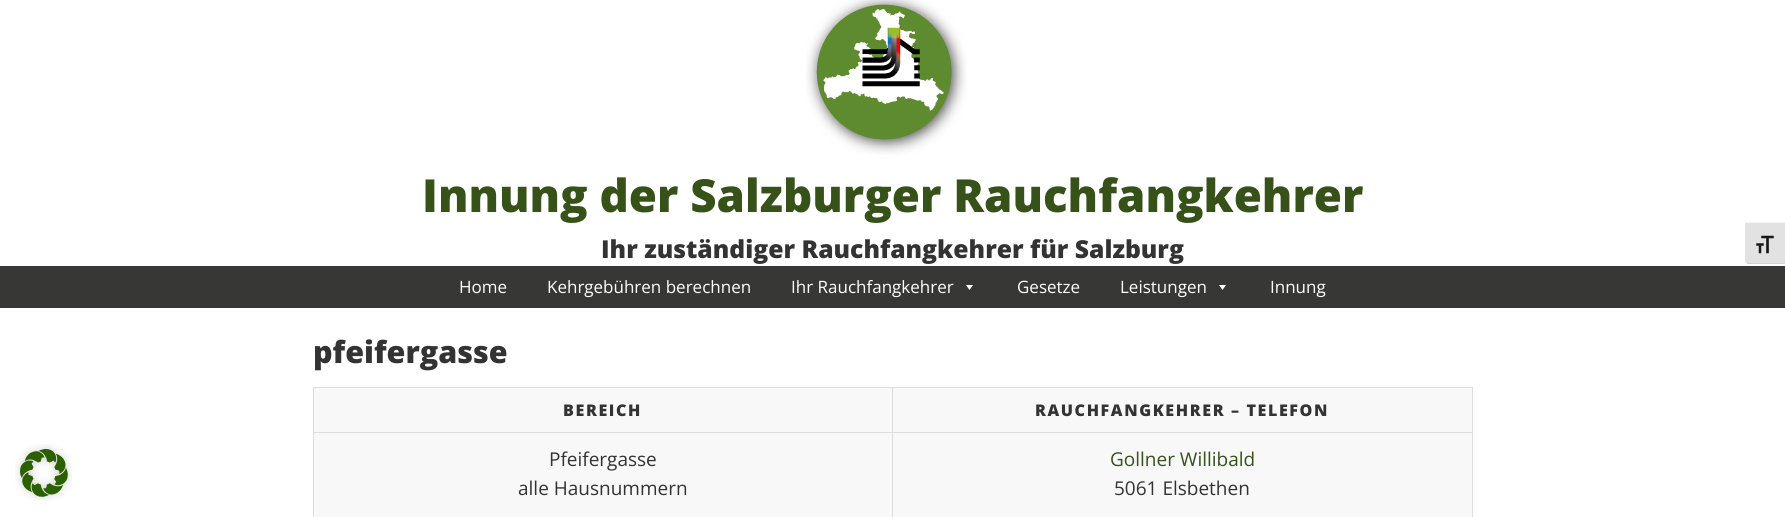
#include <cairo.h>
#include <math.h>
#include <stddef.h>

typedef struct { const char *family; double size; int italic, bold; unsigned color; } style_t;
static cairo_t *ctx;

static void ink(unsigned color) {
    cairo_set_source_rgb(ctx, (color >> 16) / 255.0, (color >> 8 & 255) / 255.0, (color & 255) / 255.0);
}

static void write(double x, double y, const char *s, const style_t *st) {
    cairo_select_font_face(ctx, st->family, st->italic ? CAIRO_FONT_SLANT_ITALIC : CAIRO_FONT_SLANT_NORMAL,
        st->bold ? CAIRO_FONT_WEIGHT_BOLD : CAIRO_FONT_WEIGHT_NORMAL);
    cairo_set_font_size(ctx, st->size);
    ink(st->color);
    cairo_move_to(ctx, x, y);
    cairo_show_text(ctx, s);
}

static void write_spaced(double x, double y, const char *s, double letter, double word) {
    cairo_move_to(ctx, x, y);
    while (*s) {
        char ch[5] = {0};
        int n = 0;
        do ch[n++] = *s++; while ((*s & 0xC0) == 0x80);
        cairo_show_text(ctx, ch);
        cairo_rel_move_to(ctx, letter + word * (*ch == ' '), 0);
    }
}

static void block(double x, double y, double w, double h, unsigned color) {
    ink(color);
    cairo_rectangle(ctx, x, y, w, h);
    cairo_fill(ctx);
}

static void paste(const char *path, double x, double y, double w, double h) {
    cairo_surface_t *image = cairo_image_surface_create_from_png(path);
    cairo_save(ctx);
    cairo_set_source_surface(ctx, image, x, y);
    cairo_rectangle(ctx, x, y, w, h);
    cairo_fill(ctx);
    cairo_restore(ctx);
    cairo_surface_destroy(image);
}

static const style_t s1 = {"Open Sans ExtraBold", 45.6, 0, 0, 0x365219};
static const style_t s2 = {"Open Sans ExtraBold", 24.7, 0, 0, 0x333333};
static const style_t s3 = {"Open Sans", 17, 0, 0, 0xffffff};
static const style_t s4 = {"Open Sans ExtraBold", 30.5, 0, 0, 0x333333};
static const style_t s5 = {"Open Sans", 19, 0, 0, 0x333333};
static const style_t s6 = {"Open Sans", 19, 0, 0, 0x365219};

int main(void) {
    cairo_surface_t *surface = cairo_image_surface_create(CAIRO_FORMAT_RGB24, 1785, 517);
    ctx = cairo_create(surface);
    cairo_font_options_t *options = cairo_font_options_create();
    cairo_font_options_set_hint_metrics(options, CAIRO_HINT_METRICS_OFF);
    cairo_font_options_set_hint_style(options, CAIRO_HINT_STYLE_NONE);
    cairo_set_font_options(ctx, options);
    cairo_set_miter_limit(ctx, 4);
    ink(0xffffff);
    cairo_paint(ctx);
    paste("pic1.png", 806, 0, 161, 155);
    write(422, 212, "Innung der Salzburger Rauchfangkehrer", &s1);
    write(601, 258, "Ihr zuständiger Rauchfangkehrer für Salzburg", &s2);
    block(0, 266, 1785, 42, 0x373736);
    write(459, 293, "Home", &s3);
    write(547, 293, "Kehrgebühren berechnen", &s3);
    write(791, 293, "Ihr Rauchfangkehrer", &s3);
    cairo_new_path(ctx);
    cairo_move_to(ctx, 973, 285);
    cairo_line_to(ctx, 969.5, 290);
    cairo_line_to(ctx, 966, 285);
    cairo_close_path(ctx);
    cairo_fill(ctx);
    write(1017, 293, "Gesetze", &s3);
    write(1120, 293, "Leistungen", &s3);
    cairo_new_path(ctx);
    cairo_move_to(ctx, 1226, 285);
    cairo_line_to(ctx, 1222.5, 290);
    cairo_line_to(ctx, 1219, 285);
    cairo_close_path(ctx);
    cairo_fill(ctx);
    write(1270, 293, "Innung", &s3);
    write(313, 363, "pfeifergasse", &s4);
    block(314, 388, 1158, 44, 0xf8f8f8);
    block(313, 387, 1160, 1, 0xdddddd);
    block(313, 432, 1160, 1, 0xdddddd);
    block(1472, 432, 1, 85, 0xdddddd);
    block(1472, 387, 1, 46, 0xdddddd);
    block(313, 432, 1, 85, 0xdddddd);
    block(313, 387, 1, 46, 0xdddddd);
    cairo_set_font_size(ctx, 16.1);
    ink(0x333333);
    write_spaced(563, 416, "BEREICH", 1.6, 0);
    write_spaced(1035, 416, "RAUCHFANGKEHRER – TELEFON", 1.6, 0);
    block(314, 433, 1158, 84, 0xf8f8f8);
    write(549, 466, "Pfeifergasse", &s5);
    write(518, 495, "alle Hausnummern", &s5);
    block(892, 387, 1, 130, 0xdddddd);
    write(1110, 466, "Gollner Willibald", &s6);
    write(1114, 495, "5061 Elsbethen", &s5);
    ink(0xe2e2e2);
    cairo_new_path(ctx);
    cairo_move_to(ctx, 1745, 222);
    cairo_line_to(ctx, 1785, 222);
    cairo_line_to(ctx, 1785, 264);
    cairo_line_to(ctx, 1749, 264);
    cairo_curve_to(ctx, 1747, 264, 1745, 262, 1745, 260);
    cairo_close_path(ctx);
    cairo_fill(ctx);
    block(1745, 222, 40, 1, 0xf5f5f5);
    ink(0xd2d2d2);
    cairo_new_path(ctx);
    cairo_move_to(ctx, 1785, 264);
    cairo_line_to(ctx, 1785, 263);
    cairo_line_to(ctx, 1749, 263);
    cairo_curve_to(ctx, 1747, 263, 1745, 262, 1745, 260);
    cairo_curve_to(ctx, 1745, 262, 1747, 264, 1749, 264);
    cairo_close_path(ctx);
    cairo_fill(ctx);
    paste("pic2.png", 1756, 235, 18, 19);
    paste("pic3.png", 15, 444, 57, 57);
    cairo_surface_write_to_png(surface, "screenshot.png");
    cairo_font_options_destroy(options);
    cairo_destroy(ctx);
    cairo_surface_destroy(surface);
    return 0;
}
